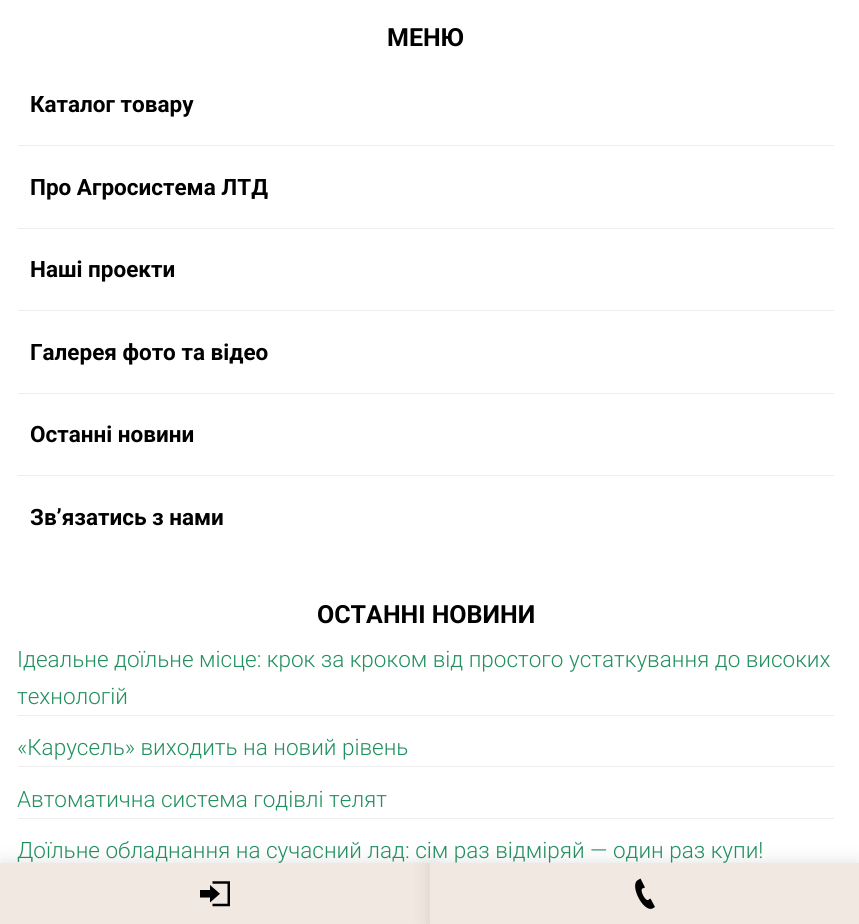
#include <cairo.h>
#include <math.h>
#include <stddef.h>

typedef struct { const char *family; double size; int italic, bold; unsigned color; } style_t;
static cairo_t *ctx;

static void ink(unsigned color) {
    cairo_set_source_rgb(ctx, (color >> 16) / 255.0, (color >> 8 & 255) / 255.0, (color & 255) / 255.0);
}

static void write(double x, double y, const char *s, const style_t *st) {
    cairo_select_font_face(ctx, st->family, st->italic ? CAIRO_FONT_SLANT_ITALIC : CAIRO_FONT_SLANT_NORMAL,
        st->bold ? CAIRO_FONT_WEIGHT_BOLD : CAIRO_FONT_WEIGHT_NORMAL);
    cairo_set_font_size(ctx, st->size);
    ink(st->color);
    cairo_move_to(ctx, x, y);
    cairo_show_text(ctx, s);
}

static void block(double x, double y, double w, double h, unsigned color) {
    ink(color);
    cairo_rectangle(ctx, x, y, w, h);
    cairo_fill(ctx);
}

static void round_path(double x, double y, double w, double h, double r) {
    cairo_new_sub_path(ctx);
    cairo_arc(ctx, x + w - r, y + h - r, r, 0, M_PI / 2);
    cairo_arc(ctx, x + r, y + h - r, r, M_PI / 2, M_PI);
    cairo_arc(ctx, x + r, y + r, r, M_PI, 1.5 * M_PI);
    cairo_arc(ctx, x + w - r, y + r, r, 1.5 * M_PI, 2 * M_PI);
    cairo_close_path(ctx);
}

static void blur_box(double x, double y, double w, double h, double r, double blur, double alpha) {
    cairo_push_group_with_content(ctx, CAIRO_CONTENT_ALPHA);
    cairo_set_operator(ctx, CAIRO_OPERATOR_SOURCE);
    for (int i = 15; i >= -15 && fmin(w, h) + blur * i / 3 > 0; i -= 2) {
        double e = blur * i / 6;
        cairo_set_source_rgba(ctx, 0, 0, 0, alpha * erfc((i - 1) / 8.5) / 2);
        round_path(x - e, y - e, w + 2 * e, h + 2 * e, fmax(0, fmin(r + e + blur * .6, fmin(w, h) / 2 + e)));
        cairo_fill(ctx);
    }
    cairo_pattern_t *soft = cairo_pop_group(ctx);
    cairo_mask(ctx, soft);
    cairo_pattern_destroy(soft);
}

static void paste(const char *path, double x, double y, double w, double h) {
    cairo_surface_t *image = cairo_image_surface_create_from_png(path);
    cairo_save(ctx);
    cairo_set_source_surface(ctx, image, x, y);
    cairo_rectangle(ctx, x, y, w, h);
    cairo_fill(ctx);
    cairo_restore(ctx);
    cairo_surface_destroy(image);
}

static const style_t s1 = {"Roboto", 25, 0, 1, 0x000000};
static const style_t s2 = {"Roboto", 22.5, 0, 1, 0x000000};
static const style_t s3 = {"Roboto Light", 22.5, 0, 0, 0x22905f};

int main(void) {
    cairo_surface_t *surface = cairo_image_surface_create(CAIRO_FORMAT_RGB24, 859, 924);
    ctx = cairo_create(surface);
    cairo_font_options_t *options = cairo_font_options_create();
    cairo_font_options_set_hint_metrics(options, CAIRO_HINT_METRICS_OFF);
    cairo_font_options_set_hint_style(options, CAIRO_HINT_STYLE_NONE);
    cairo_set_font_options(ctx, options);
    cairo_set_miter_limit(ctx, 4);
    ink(0xffffff);
    cairo_paint(ctx);
    write(387, 46, "МЕНЮ", &s1);
    block(18, 145, 816, 1, 0xeeeeee);
    write(30, 112, "Каталог товару", &s2);
    block(18, 228, 816, 1, 0xeeeeee);
    write(30, 195, "Про Агросистема ЛТД", &s2);
    block(18, 310, 816, 1, 0xeeeeee);
    write(30, 277, "Наші проекти", &s2);
    block(18, 393, 816, 1, 0xeeeeee);
    write(30, 360, "Галерея фото та відео", &s2);
    block(18, 475, 816, 1, 0xeeeeee);
    write(30, 442, "Останні новини", &s2);
    write(30, 525, "Зв’язатись з нами", &s2);
    write(317, 623, "ОСТАННІ НОВИНИ", &s1);
    block(18, 715, 816, 1, 0xeeeeee);
    write(17, 667, "Ідеальне доїльне місце: крок за кроком від простого устаткування до високих", &s3);
    write(17, 704, "технологій", &s3);
    block(18, 766, 816, 1, 0xeeeeee);
    write(17, 755, "«Карусель» виходить на новий рівень", &s3);
    block(18, 818, 816, 1, 0xeeeeee);
    write(17, 807, "Автоматична система годівлі телят", &s3);
    write(17, 858, "Доїльне обладнання на сучасний лад: сім раз відміряй — один раз купи!", &s3);
    ink(0x323232);
    blur_box(0, 863, 430, 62, 0, 9.5, 0.15);
    block(0, 863, 430, 61, 0xf2e8e2);
    paste("pic1.png", 200, 881, 30, 26);
    ink(0x323232);
    blur_box(430, 863, 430, 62, 0, 9.5, 0.15);
    block(430, 863, 429, 61, 0xf2e8e2);
    ink(0x000000);
    cairo_new_path(ctx);
    cairo_move_to(ctx, 655, 907);
    cairo_line_to(ctx, 650.5, 898.5);
    cairo_line_to(ctx, 648, 900);
    cairo_curve_to(ctx, 645, 901, 639.5, 890, 642.5, 888.5);
    cairo_line_to(ctx, 645, 887.5);
    cairo_line_to(ctx, 640.5, 878.5);
    cairo_line_to(ctx, 638, 880);
    cairo_curve_to(ctx, 629, 884.5, 643, 912.5, 652.5, 908.5);
    cairo_close_path(ctx);
    cairo_fill(ctx);
    cairo_surface_write_to_png(surface, "screenshot.png");
    cairo_font_options_destroy(options);
    cairo_destroy(ctx);
    cairo_surface_destroy(surface);
    return 0;
}
